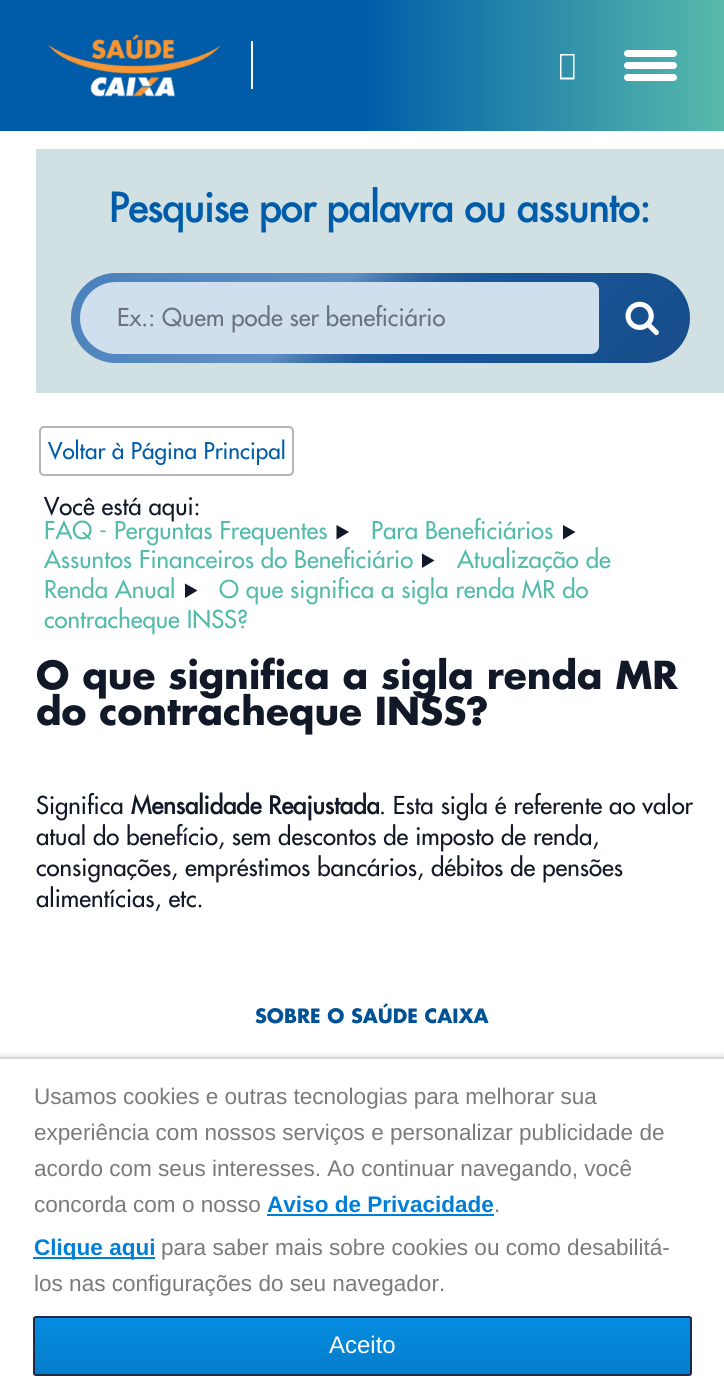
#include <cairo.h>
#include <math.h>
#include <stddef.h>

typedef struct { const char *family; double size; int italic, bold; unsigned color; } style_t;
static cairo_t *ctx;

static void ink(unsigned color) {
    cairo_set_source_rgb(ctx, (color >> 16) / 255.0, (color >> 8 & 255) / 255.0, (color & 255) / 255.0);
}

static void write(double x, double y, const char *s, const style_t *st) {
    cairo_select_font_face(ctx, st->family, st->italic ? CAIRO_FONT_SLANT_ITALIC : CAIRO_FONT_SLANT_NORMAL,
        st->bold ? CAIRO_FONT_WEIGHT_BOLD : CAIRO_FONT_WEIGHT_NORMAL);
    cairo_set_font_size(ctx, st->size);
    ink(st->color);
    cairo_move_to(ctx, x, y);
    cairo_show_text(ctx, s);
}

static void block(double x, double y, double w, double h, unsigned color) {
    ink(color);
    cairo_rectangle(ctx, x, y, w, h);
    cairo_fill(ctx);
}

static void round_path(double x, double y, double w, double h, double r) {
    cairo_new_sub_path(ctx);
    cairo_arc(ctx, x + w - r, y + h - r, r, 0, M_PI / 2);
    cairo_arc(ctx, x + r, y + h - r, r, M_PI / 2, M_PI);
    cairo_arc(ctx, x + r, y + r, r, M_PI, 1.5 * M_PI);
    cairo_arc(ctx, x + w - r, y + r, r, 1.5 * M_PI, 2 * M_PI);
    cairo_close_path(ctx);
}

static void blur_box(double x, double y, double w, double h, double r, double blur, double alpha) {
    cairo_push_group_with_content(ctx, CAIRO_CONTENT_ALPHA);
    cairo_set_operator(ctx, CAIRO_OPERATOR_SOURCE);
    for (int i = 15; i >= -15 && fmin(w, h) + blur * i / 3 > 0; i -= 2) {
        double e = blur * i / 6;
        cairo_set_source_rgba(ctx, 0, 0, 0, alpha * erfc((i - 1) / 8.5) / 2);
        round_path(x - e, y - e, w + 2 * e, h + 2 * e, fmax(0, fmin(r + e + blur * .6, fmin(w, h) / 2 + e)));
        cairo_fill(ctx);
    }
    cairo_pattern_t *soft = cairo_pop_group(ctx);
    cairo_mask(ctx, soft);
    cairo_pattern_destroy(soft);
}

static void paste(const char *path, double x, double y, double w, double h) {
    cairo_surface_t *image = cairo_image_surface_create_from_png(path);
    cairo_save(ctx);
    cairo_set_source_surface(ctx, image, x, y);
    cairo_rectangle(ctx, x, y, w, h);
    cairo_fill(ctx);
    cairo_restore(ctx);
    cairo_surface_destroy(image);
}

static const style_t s1 = {"Futura", 39, 0, 1, 0x005ca9};
static const style_t s2 = {"Futura", 24, 0, 0, 0x6b7280};
static const style_t s3 = {"Futura", 22.5, 0, 0, 0x005ca9};
static const style_t s4 = {"Futura", 24, 0, 0, 0x111827};
static const style_t s5 = {"Futura", 24, 0, 0, 0x54bbab};
static const style_t s6 = {"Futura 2", 37.5, 0, 1, 0x111827};
static const style_t s7 = {"Futura", 24, 0, 1, 0x111827};
static const style_t s8 = {"Futura 2", 19.25, 0, 1, 0x005294};
static const style_t s9 = {"Liberation Sans", 22.55, 0, 0, 0x7a7a7a};
static const style_t s10 = {"Liberation Sans", 22.55, 0, 1, 0x017ed7};
static const style_t s11 = {"Liberation Sans", 24, 0, 0, 0xffffff};

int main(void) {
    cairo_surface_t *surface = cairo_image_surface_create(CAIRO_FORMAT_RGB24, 724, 1395);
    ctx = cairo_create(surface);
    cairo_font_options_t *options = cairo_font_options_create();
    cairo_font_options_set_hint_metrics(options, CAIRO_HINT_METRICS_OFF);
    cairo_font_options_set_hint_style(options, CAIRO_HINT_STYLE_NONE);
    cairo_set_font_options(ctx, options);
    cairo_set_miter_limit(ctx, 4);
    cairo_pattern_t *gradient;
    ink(0xffffff);
    cairo_paint(ctx);
    gradient = cairo_pattern_create_linear(0, 65, 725, 65);
    cairo_pattern_add_color_stop_rgba(gradient, 0, 0, 0.361, 0.663, 1);
    cairo_pattern_add_color_stop_rgba(gradient, 0.5, 0, 0.361, 0.663, 1);
    cairo_pattern_add_color_stop_rgba(gradient, 1, 0.345, 0.733, 0.671, 1);
    cairo_set_source(ctx, gradient);
    cairo_pattern_destroy(gradient);
    cairo_rectangle(ctx, 0, 0, 724, 131);
    cairo_fill(ctx);
    paste("pic1.png", 48, 34, 173, 63);
    block(251, 41, 2, 48, 0xffffff);
    cairo_new_path(ctx);
    cairo_move_to(ctx, 560, 79.5);
    cairo_line_to(ctx, 560, 54);
    cairo_line_to(ctx, 574.5, 54);
    cairo_line_to(ctx, 574.5, 79.5);
    cairo_close_path(ctx);
    cairo_move_to(ctx, 561.5, 77.5);
    cairo_line_to(ctx, 573, 77.5);
    cairo_line_to(ctx, 573, 55.5);
    cairo_line_to(ctx, 561.5, 55.5);
    cairo_close_path(ctx);
    cairo_fill(ctx);
    round_path(624, 50, 53, 7, 3.5);
    cairo_fill(ctx);
    round_path(624, 62, 53, 7, 3.5);
    cairo_fill(ctx);
    round_path(624, 74, 53, 7, 3.5);
    cairo_fill(ctx);
    block(36, 149, 688, 244, 0xd0e0e3);
    write(109, 222, "Pesquise por palavra ou assunto:", &s1);
    ink(0x1c60ab);
    round_path(71, 273, 619, 90, 45);
    cairo_fill(ctx);
    gradient = cairo_pattern_create_linear(203, 141, 558, 495);
    cairo_pattern_add_color_stop_rgba(gradient, 0, 1, 1, 1, 0.2);
    cairo_pattern_add_color_stop_rgba(gradient, 0.4, 1, 1, 1, 0.3);
    cairo_pattern_add_color_stop_rgba(gradient, 0.6, 0, 0, 0, 0.1);
    cairo_pattern_add_color_stop_rgba(gradient, 1, 0, 0, 0, 0.2);
    cairo_set_source(ctx, gradient);
    cairo_pattern_destroy(gradient);
    round_path(71, 273, 619, 90, 45);
    cairo_fill(ctx);
    ink(0xd0dfed);
    cairo_new_path(ctx);
    cairo_move_to(ctx, 116, 282);
    cairo_line_to(ctx, 591, 282);
    cairo_curve_to(ctx, 595.5, 282, 599, 285.5, 599, 290);
    cairo_line_to(ctx, 599, 346);
    cairo_curve_to(ctx, 599, 350.5, 595.5, 354, 591, 354);
    cairo_line_to(ctx, 116, 354);
    cairo_curve_to(ctx, 96, 354, 80, 338, 80, 318);
    cairo_curve_to(ctx, 80, 298, 96, 282, 116, 282);
    cairo_close_path(ctx);
    cairo_fill(ctx);
    write(117, 326, "Ex.: Quem pode ser beneficiário", &s2);
    paste("pic2.png", 625, 301, 34, 35);
    round_path(40, 427, 253, 48, 4);
    ink(0xb5b5b5);
    cairo_stroke(ctx);
    write(48, 459, "Voltar à Página Principal", &s3);
    write(44, 515, "Você está aqui:", &s4);
    write(44, 539, "FAQ - Perguntas Frequentes", &s5);
    ink(0x111827);
    cairo_new_path(ctx);
    cairo_move_to(ctx, 336.5, 525);
    cairo_line_to(ctx, 349, 532);
    cairo_line_to(ctx, 336.5, 539.5);
    cairo_close_path(ctx);
    cairo_fill(ctx);
    write(371, 539, "Para Beneficiários", &s5);
    ink(0x111827);
    cairo_new_path(ctx);
    cairo_move_to(ctx, 563, 525);
    cairo_line_to(ctx, 575.5, 532);
    cairo_line_to(ctx, 563, 539.5);
    cairo_close_path(ctx);
    cairo_fill(ctx);
    write(44, 568, "Assuntos Financeiros do Beneficiário", &s5);
    ink(0x111827);
    cairo_new_path(ctx);
    cairo_move_to(ctx, 422, 553.5);
    cairo_line_to(ctx, 434.5, 560.5);
    cairo_line_to(ctx, 422, 568);
    cairo_close_path(ctx);
    cairo_fill(ctx);
    write(457, 568, "Atualização de", &s5);
    write(44, 598, "Renda Anual", &s5);
    ink(0x111827);
    cairo_new_path(ctx);
    cairo_move_to(ctx, 185, 583.5);
    cairo_line_to(ctx, 197.5, 590.5);
    cairo_line_to(ctx, 185, 598);
    cairo_close_path(ctx);
    cairo_fill(ctx);
    write(219, 598, "O que significa a sigla renda MR do", &s5);
    write(44, 628, "contracheque INSS?", &s5);
    write(36, 689, "O que significa a sigla renda MR", &s6);
    write(36, 725, "do contracheque INSS?", &s6);
    write(36, 814, "Significa", &s4);
    write(131, 814, "Mensalidade Reajustada", &s7);
    write(379, 814, ". Esta sigla é referente ao valor", &s4);
    write(36, 845, "atual do benefício, sem descontos de imposto de renda,", &s4);
    write(36, 876, "consignações, empréstimos bancários, débitos de pensões", &s4);
    write(36, 907, "alimentícias, etc.", &s4);
    write(255, 1023, "SOBRE O SAÚDE CAIXA", &s8);
    ink(0x323232);
    blur_box(-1, 1061, 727, 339, 0, 4.5, 0.75);
    block(0, 1059, 724, 336, 0xffffff);
    write(34, 1104, "Usamos cookies e outras tecnologias para melhorar sua", &s9);
    write(34, 1140, "experiência com nossos serviços e personalizar publicidade de", &s9);
    write(34, 1176, "acordo com seus interesses. Ao continuar navegando, você", &s9);
    write(34, 1212, "concorda com o nosso", &s9);
    write(267, 1212, "Aviso de Privacidade", &s10);
    block(267, 1214, 227, 2, 0x017ed7);
    write(494, 1212, ".", &s9);
    block(33, 1257, 122, 2, 0x017ed7);
    write(34, 1255, "Clique aqui", &s10);
    write(161, 1255, "para saber mais sobre cookies ou como desabilitá-", &s9);
    write(34, 1291, "los nas configurações do seu navegador.", &s9);
    cairo_save(ctx);
    cairo_rectangle(ctx, 33, 1302, 659, 74);
    cairo_clip(ctx);
    ink(0xe9eaed);
    cairo_new_path(ctx);
    cairo_move_to(ctx, 33, 1372);
    cairo_line_to(ctx, 33, 1376);
    cairo_curve_to(ctx, 33, 1378, 34, 1379, 36, 1379);
    cairo_line_to(ctx, 689, 1379);
    cairo_curve_to(ctx, 691, 1379, 692, 1378, 692, 1376);
    cairo_line_to(ctx, 692, 1322);
    cairo_line_to(ctx, 692, 1320);
    cairo_line_to(ctx, 692, 1372);
    cairo_curve_to(ctx, 692, 1374, 690, 1376, 688, 1376);
    cairo_line_to(ctx, 36, 1376);
    cairo_curve_to(ctx, 34, 1376, 33, 1374, 33, 1372);
    cairo_close_path(ctx);
    cairo_fill(ctx);
    cairo_restore(ctx);
    cairo_save(ctx);
    round_path(33, 1316, 659, 60, 3);
    cairo_clip(ctx);
    gradient = cairo_pattern_create_linear(362, 1317, 362, 1374);
    cairo_pattern_add_color_stop_rgba(gradient, 0, 0.02, 0.549, 0.878, 1);
    cairo_pattern_add_color_stop_rgba(gradient, 1, 0.016, 0.494, 0.796, 1);
    cairo_set_source(ctx, gradient);
    cairo_pattern_destroy(gradient);
    cairo_rectangle(ctx, 33, 1317, 659, 57);
    cairo_fill(ctx);
    cairo_restore(ctx);
    round_path(34, 1317, 657, 58, 2);
    ink(0x1f2a47);
    cairo_stroke(ctx);
    write(329, 1353, "Aceito", &s11);
    cairo_surface_write_to_png(surface, "screenshot.png");
    cairo_font_options_destroy(options);
    cairo_destroy(ctx);
    cairo_surface_destroy(surface);
    return 0;
}
